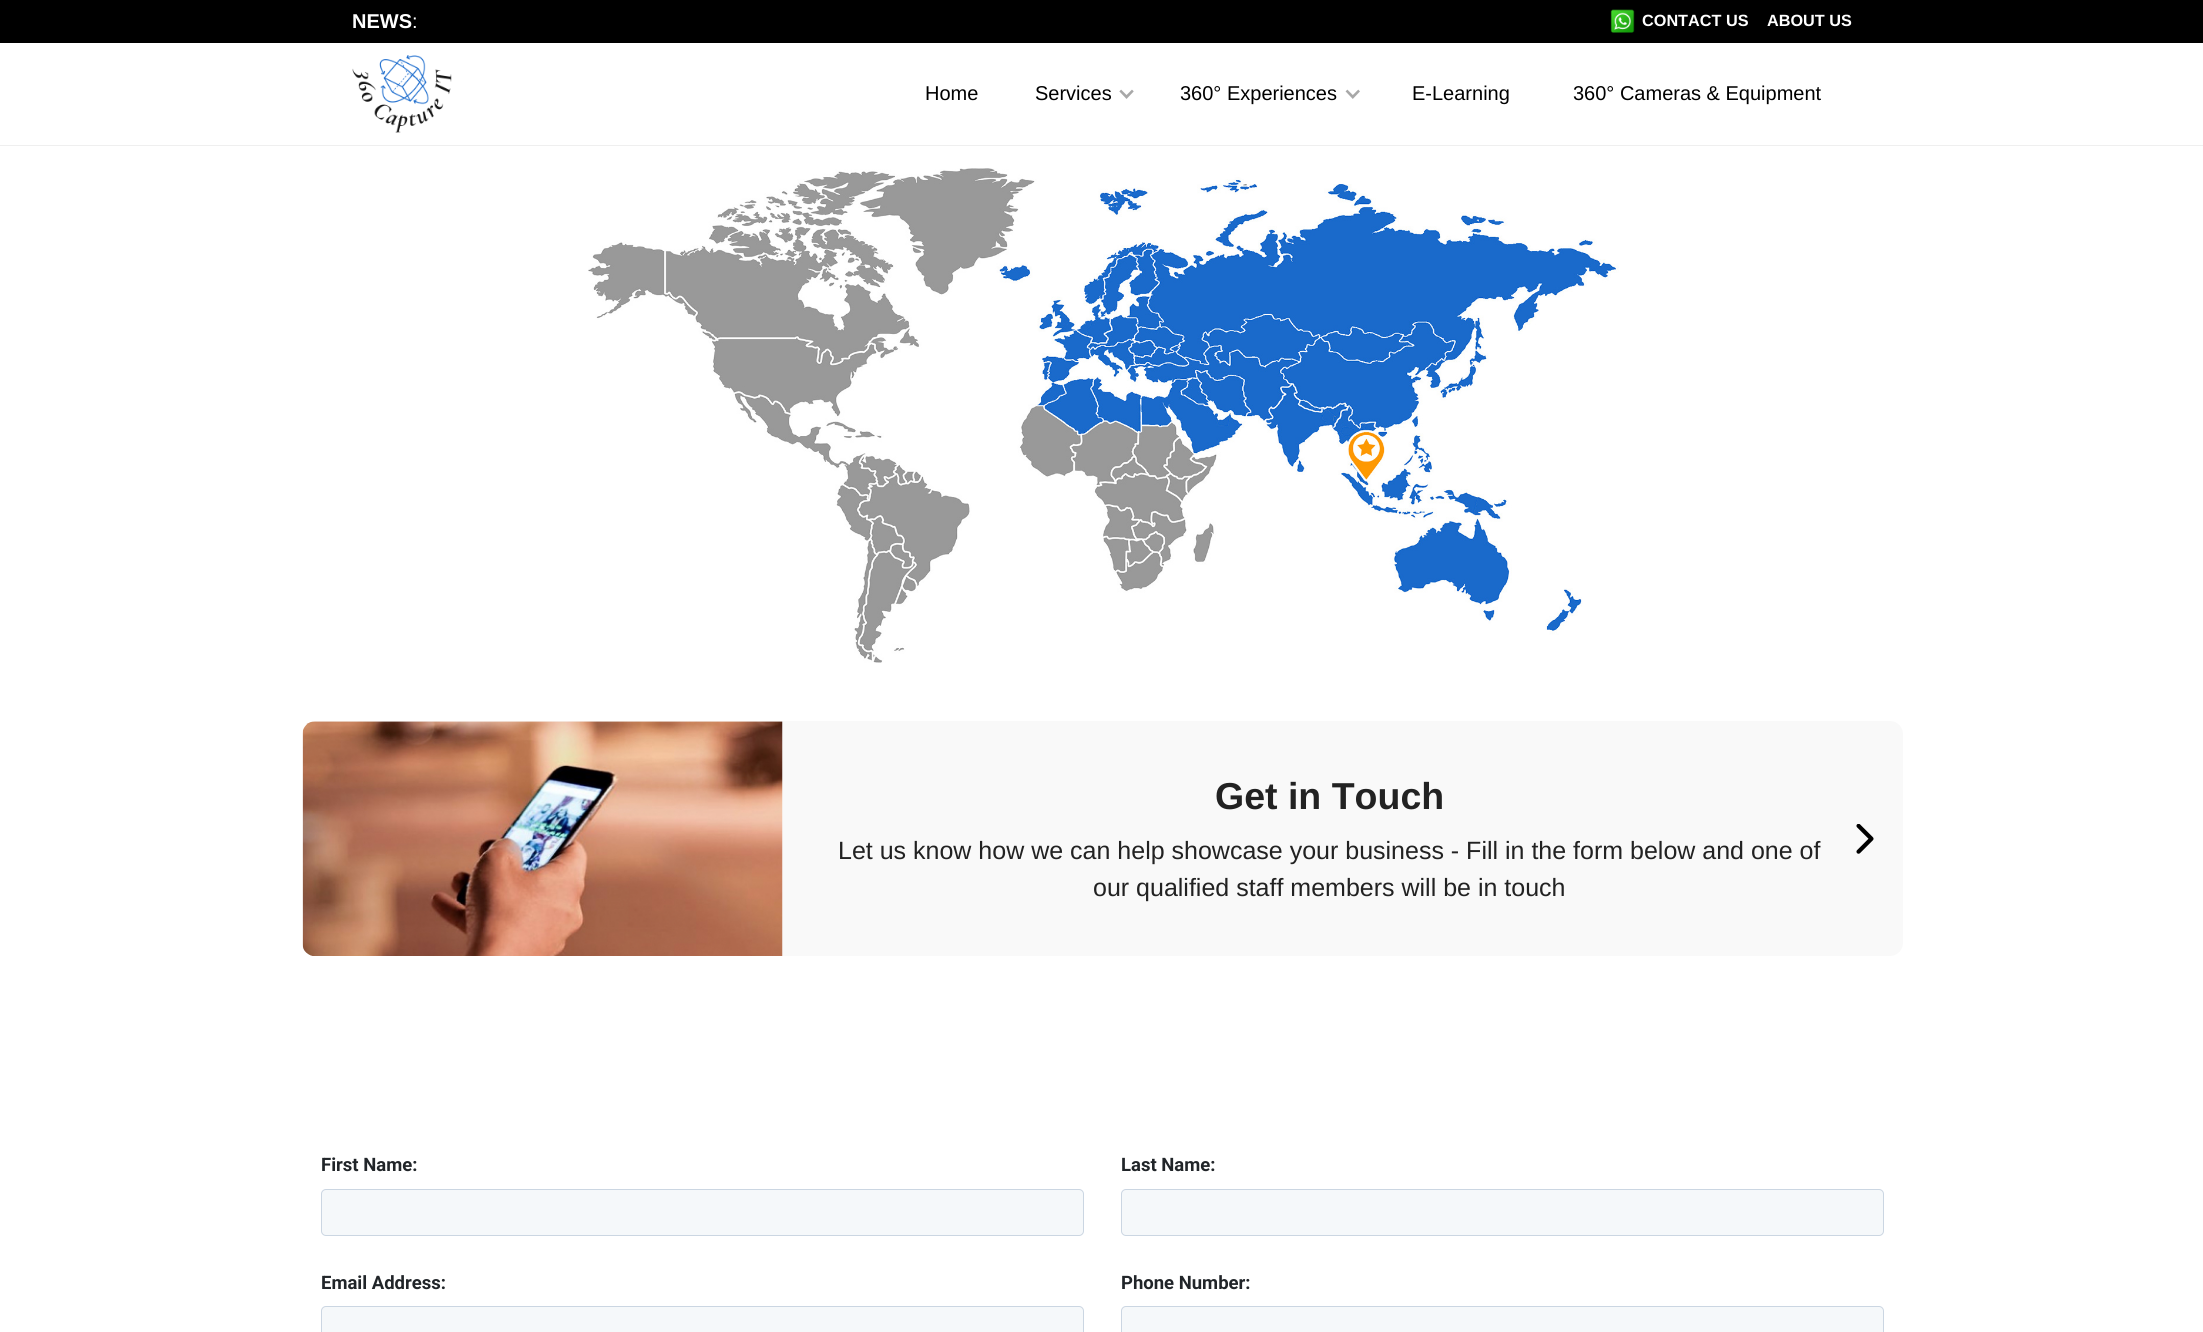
#include <cairo.h>
#include <math.h>
#include <stddef.h>

typedef struct { const char *family; double size; int italic, bold; unsigned color; } style_t;
static cairo_t *ctx;

static void ink(unsigned color) {
    cairo_set_source_rgb(ctx, (color >> 16) / 255.0, (color >> 8 & 255) / 255.0, (color & 255) / 255.0);
}

static void write(double x, double y, const char *s, const style_t *st) {
    cairo_select_font_face(ctx, st->family, st->italic ? CAIRO_FONT_SLANT_ITALIC : CAIRO_FONT_SLANT_NORMAL,
        st->bold ? CAIRO_FONT_WEIGHT_BOLD : CAIRO_FONT_WEIGHT_NORMAL);
    cairo_set_font_size(ctx, st->size);
    ink(st->color);
    cairo_move_to(ctx, x, y);
    cairo_show_text(ctx, s);
}

static void block(double x, double y, double w, double h, unsigned color) {
    ink(color);
    cairo_rectangle(ctx, x, y, w, h);
    cairo_fill(ctx);
}

static void round_path(double x, double y, double w, double h, double r) {
    cairo_new_sub_path(ctx);
    cairo_arc(ctx, x + w - r, y + h - r, r, 0, M_PI / 2);
    cairo_arc(ctx, x + r, y + h - r, r, M_PI / 2, M_PI);
    cairo_arc(ctx, x + r, y + r, r, M_PI, 1.5 * M_PI);
    cairo_arc(ctx, x + w - r, y + r, r, 1.5 * M_PI, 2 * M_PI);
    cairo_close_path(ctx);
}

static void paste(const char *path, double x, double y, double w, double h) {
    cairo_surface_t *image = cairo_image_surface_create_from_png(path);
    cairo_save(ctx);
    cairo_set_source_surface(ctx, image, x, y);
    cairo_rectangle(ctx, x, y, w, h);
    cairo_fill(ctx);
    cairo_restore(ctx);
    cairo_surface_destroy(image);
}

static const style_t s1 = {"Liberation Sans", 20, 0, 1, 0xffffff};
static const style_t s2 = {"Liberation Sans", 20, 0, 0, 0xffffff};
static const style_t s3 = {"Liberation Sans", 16.25, 0, 1, 0xffffff};
static const style_t s4 = {"Liberation Sans", 20, 0, 0, 0x000000};
static const style_t s5 = {"Liberation Sans", 37.5, 0, 1, 0x222222};
static const style_t s6 = {"Liberation Sans", 25, 0, 0, 0x222222};
static const style_t s7 = {"Roboto", 18.5, 0, 1, 0x212529};

int main(void) {
    cairo_surface_t *surface = cairo_image_surface_create(CAIRO_FORMAT_RGB24, 2203, 1332);
    ctx = cairo_create(surface);
    cairo_font_options_t *options = cairo_font_options_create();
    cairo_font_options_set_hint_metrics(options, CAIRO_HINT_METRICS_OFF);
    cairo_font_options_set_hint_style(options, CAIRO_HINT_STYLE_NONE);
    cairo_set_font_options(ctx, options);
    cairo_set_miter_limit(ctx, 4);
    ink(0xffffff);
    cairo_paint(ctx);
    block(0, 0, 2203, 43, 0x000000);
    write(352, 28, "NEWS", &s1);
    write(412, 28, ":", &s2);
    paste("pic1.png", 1610, 9, 25, 24);
    write(1642, 26, "CONTACT US", &s3);
    write(1767, 26, "ABOUT US", &s3);
    block(0, 145, 2203, 1, 0xefefef);
    paste("pic2.png", 352, 55, 100, 78);
    write(925, 100, "Home", &s4);
    write(1035, 100, "Services", &s4);
    paste("pic3.png", 1119, 89, 15, 10);
    write(1180, 100, "360° Experiences", &s4);
    paste("pic4.png", 1345, 89, 15, 10);
    write(1412, 100, "E-Learning", &s4);
    write(1573, 100, "360° Cameras & Equipment", &s4);
    paste("pic5.png", 588, 168, 1031, 495);
    ink(0xf9f9f9);
    round_path(303, 721, 1600, 235, 13);
    cairo_fill(ctx);
    paste("pic6.png", 302, 721, 481, 235);
    paste("pic7.png", 1856, 824, 18, 30);
    write(1215, 809, "Get in Touch", &s5);
    write(838, 859, "Let us know how we can help showcase your business - Fill in the form below and one of", &s6);
    write(1093, 896, "our qualified staff members will be in touch", &s6);
    write(321, 1171, "First Name:", &s7);
    ink(0xf5f8fa);
    round_path(321.5, 1189.5, 762, 46, 4.5);
    cairo_fill_preserve(ctx);
    ink(0xcbd6e2);
    cairo_set_line_width(ctx, 1);
    cairo_stroke(ctx);
    write(1121, 1171, "Last Name:", &s7);
    ink(0xf5f8fa);
    round_path(1121.5, 1189.5, 762, 46, 4.5);
    cairo_fill_preserve(ctx);
    ink(0xcbd6e2);
    cairo_stroke(ctx);
    write(321, 1289, "Email Address:", &s7);
    ink(0xf5f8fa);
    round_path(321.5, 1306.5, 762, 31, 4.5);
    cairo_fill_preserve(ctx);
    ink(0xcbd6e2);
    cairo_stroke(ctx);
    write(1121, 1289, "Phone Number:", &s7);
    ink(0xf5f8fa);
    round_path(1121.5, 1306.5, 762, 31, 4.5);
    cairo_fill_preserve(ctx);
    ink(0xcbd6e2);
    cairo_stroke(ctx);
    cairo_surface_write_to_png(surface, "screenshot.png");
    cairo_font_options_destroy(options);
    cairo_destroy(ctx);
    cairo_surface_destroy(surface);
    return 0;
}
